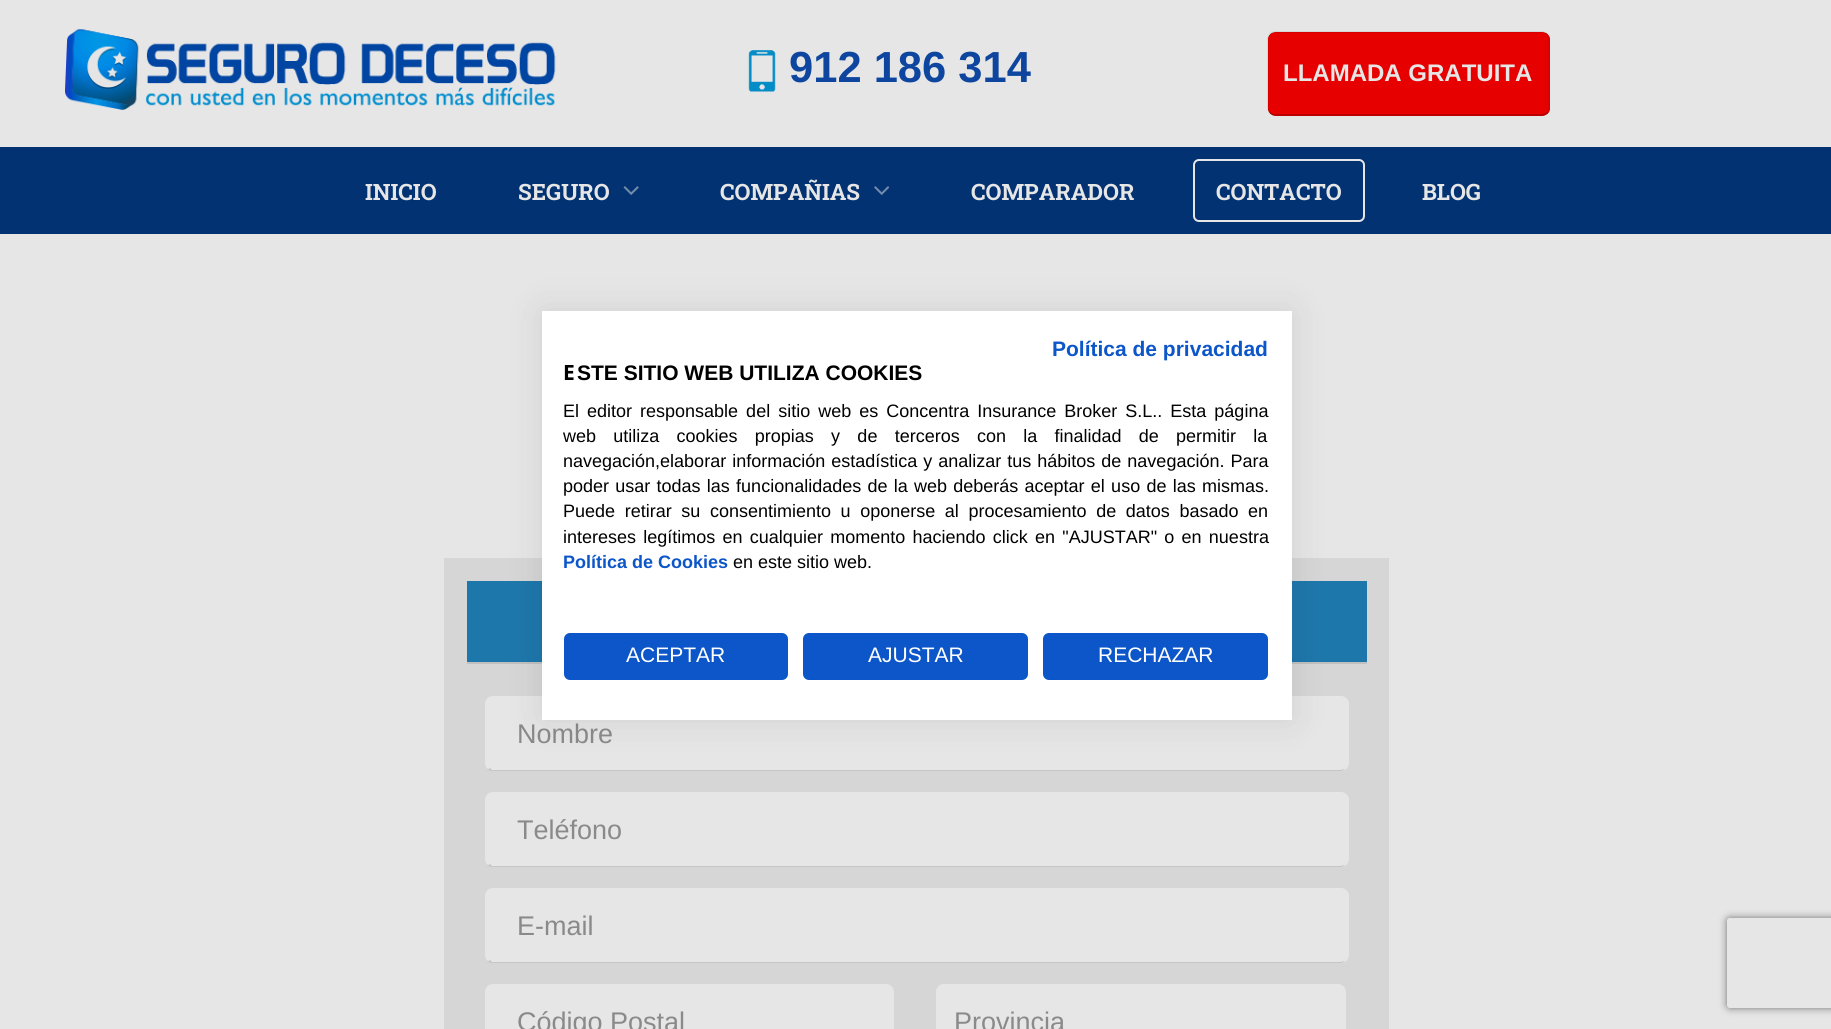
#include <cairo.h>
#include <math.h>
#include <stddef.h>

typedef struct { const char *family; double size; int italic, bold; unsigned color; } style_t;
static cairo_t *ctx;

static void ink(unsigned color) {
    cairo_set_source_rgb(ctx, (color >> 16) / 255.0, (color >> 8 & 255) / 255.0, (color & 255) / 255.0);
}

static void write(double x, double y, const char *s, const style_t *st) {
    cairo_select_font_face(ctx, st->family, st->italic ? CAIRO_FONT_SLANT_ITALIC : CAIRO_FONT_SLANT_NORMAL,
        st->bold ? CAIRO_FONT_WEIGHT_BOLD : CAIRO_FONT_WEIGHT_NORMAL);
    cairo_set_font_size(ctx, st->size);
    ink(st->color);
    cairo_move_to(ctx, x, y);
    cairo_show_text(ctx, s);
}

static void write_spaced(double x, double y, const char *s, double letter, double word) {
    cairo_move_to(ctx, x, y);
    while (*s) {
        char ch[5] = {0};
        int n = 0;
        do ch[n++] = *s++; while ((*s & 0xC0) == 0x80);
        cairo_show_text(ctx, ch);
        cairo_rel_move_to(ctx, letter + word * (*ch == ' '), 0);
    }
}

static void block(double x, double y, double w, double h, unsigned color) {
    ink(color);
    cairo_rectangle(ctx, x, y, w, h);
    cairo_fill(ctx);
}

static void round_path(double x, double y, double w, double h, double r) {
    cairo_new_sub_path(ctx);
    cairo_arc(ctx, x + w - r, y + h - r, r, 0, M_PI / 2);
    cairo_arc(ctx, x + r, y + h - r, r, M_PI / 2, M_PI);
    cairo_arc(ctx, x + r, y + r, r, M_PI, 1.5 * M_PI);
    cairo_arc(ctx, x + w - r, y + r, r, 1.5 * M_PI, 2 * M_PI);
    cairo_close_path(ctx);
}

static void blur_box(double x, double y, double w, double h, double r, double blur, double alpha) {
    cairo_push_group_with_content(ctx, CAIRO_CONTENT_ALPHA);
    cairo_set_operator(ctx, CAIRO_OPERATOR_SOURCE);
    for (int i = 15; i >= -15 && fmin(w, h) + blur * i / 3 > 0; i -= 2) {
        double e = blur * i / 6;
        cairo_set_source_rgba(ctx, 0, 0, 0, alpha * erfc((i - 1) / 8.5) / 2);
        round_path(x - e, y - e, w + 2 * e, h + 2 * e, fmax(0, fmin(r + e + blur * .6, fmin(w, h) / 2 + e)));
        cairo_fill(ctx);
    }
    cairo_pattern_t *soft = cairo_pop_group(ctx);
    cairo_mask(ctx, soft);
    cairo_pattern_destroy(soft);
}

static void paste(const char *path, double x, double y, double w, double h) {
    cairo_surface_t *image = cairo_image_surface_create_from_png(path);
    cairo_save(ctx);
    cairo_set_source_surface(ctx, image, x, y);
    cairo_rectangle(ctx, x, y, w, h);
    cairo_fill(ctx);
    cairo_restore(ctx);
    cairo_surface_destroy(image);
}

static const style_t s1 = {"Liberation Sans", 43.5, 0, 1, 0x0e469f};
static const style_t s2 = {"Liberation Sans", 24, 0, 1, 0xe6e6e6};
static const style_t s3 = {"Roboto Slab", 22.5, 0, 1, 0xe6e6e6};
static const style_t s4 = {"Liberation Sans", 27, 0, 0, 0x8a8a8a};
static const style_t s5 = {"Liberation Sans", 21, 0, 1, 0x0d56c9};
static const style_t s6 = {"Noto Sans", 21, 0, 1, 0x000000};
static const style_t s7 = {"Liberation Sans", 21, 0, 1, 0x000000};
static const style_t s8 = {"Liberation Sans", 18, 0, 1, 0x0d56c9};
static const style_t s9 = {"Liberation Sans", 18, 0, 0, 0x000000};
static const style_t s10 = {"Liberation Sans", 21, 0, 0, 0xffffff};

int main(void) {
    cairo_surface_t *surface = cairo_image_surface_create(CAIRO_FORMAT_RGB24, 1831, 1029);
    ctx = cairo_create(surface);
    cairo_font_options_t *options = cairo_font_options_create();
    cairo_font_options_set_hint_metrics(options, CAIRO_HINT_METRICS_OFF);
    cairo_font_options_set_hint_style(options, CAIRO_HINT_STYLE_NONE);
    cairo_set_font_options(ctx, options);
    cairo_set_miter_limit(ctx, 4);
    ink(0xe6e6e6);
    cairo_paint(ctx);
    paste("pic1.png", 65, 29, 491, 81);
    paste("pic2.png", 748, 50, 28, 42);
    write(789, 82, "912 186 314", &s1);
    ink(0xe60000);
    round_path(1268, 32, 282, 84, 8);
    cairo_fill(ctx);
    cairo_save(ctx);
    round_path(1268, 32, 282, 84, 8);
    cairo_clip(ctx);
    block(1268, 33, 282, 81, 0xe60000);
    cairo_restore(ctx);
    cairo_new_path(ctx);
    cairo_move_to(ctx, 1547, 113);
    cairo_curve_to(ctx, 1545.5, 114, 1544, 115, 1542, 115);
    cairo_line_to(ctx, 1275, 115);
    cairo_curve_to(ctx, 1273, 115, 1271.5, 114, 1270, 113);
    cairo_set_source_rgba(ctx, 0, 0, 0, 0.25);
    cairo_set_line_width(ctx, 1.5);
    cairo_stroke(ctx);
    cairo_new_path(ctx);
    cairo_move_to(ctx, 1270, 113);
    cairo_curve_to(ctx, 1269, 111.5, 1268, 110, 1268, 108);
    cairo_line_to(ctx, 1268, 39);
    cairo_curve_to(ctx, 1268, 37, 1269, 35.5, 1270, 34);
    cairo_curve_to(ctx, 1271.5, 33, 1273, 32, 1275, 32);
    cairo_line_to(ctx, 1542, 32);
    cairo_curve_to(ctx, 1544, 32, 1545.5, 33, 1547, 34);
    cairo_curve_to(ctx, 1548, 35.5, 1549, 37, 1549, 39);
    cairo_line_to(ctx, 1549, 108);
    cairo_curve_to(ctx, 1549, 110, 1548, 111.5, 1547, 113);
    cairo_set_source_rgba(ctx, 0, 0, 0, 0.1);
    cairo_stroke(ctx);
    write(1283, 81, "LLAMADA GRATUITA", &s2);
    block(0, 147, 1831, 87, 0x023271);
    write(365, 200, "INICIO", &s3);
    write(518, 200, "SEGURO", &s3);
    paste("pic3.png", 623, 186, 16, 9);
    write(720, 200, "COMPAÑIAS", &s3);
    paste("pic4.png", 874, 186, 16, 9);
    write(971, 200, "COMPARADOR", &s3);
    round_path(1194, 160, 170, 61, 5);
    cairo_set_line_width(ctx, 2);
    cairo_stroke(ctx);
    write(1216, 200, "CONTACTO", &s3);
    write(1422, 200, "BLOG", &s3);
    block(444, 558, 945, 471, 0xd6d6d6);
    block(467, 581, 900, 81, 0x1e77ab);
    block(467, 662, 900, 2, 0xc0c0c0);
    ink(0xe6e6e6);
    round_path(485, 696, 864, 75, 8);
    cairo_fill(ctx);
    ink(0xc6c6c6);
    cairo_new_path(ctx);
    cairo_move_to(ctx, 492, 771);
    cairo_line_to(ctx, 1342, 771);
    cairo_line_to(ctx, 1345, 769);
    cairo_line_to(ctx, 1344, 769);
    cairo_line_to(ctx, 1341, 770);
    cairo_line_to(ctx, 492, 770);
    cairo_line_to(ctx, 490, 768);
    cairo_line_to(ctx, 487, 770);
    cairo_curve_to(ctx, 489, 770, 490, 771, 492, 771);
    cairo_close_path(ctx);
    cairo_fill(ctx);
    write(517, 743, "Nombre", &s4);
    ink(0xe6e6e6);
    round_path(485, 792, 864, 75, 8);
    cairo_fill(ctx);
    ink(0xc6c6c6);
    cairo_new_path(ctx);
    cairo_move_to(ctx, 492, 867);
    cairo_line_to(ctx, 1342, 867);
    cairo_line_to(ctx, 1345, 865);
    cairo_line_to(ctx, 1344, 865);
    cairo_line_to(ctx, 1341, 866);
    cairo_line_to(ctx, 492, 866);
    cairo_line_to(ctx, 490, 864);
    cairo_line_to(ctx, 487, 866);
    cairo_curve_to(ctx, 489, 866, 490, 867, 492, 867);
    cairo_close_path(ctx);
    cairo_fill(ctx);
    write(517, 839, "Teléfono", &s4);
    ink(0xe6e6e6);
    round_path(485, 888, 864, 75, 8);
    cairo_fill(ctx);
    ink(0xc6c6c6);
    cairo_new_path(ctx);
    cairo_move_to(ctx, 492, 963);
    cairo_line_to(ctx, 1342, 963);
    cairo_line_to(ctx, 1345, 961);
    cairo_line_to(ctx, 1344, 961);
    cairo_line_to(ctx, 1341, 962);
    cairo_line_to(ctx, 492, 962);
    cairo_line_to(ctx, 490, 960);
    cairo_line_to(ctx, 487, 962);
    cairo_curve_to(ctx, 489, 962, 490, 963, 492, 963);
    cairo_close_path(ctx);
    cairo_fill(ctx);
    write(517, 935, "E-mail", &s4);
    ink(0xe6e6e6);
    round_path(485, 984, 409, 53, 8);
    cairo_fill(ctx);
    write(517, 1031, "Código Postal", &s4);
    ink(0xe6e6e6);
    round_path(936, 984, 410, 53, 8);
    cairo_fill(ctx);
    write(954, 1031, "Provincia", &s4);
    cairo_save(ctx);
    cairo_set_fill_rule(ctx, CAIRO_FILL_RULE_EVEN_ODD);
    cairo_new_path(ctx);
    cairo_move_to(ctx, 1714, 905);
    cairo_line_to(ctx, 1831, 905);
    cairo_line_to(ctx, 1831, 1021);
    cairo_line_to(ctx, 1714, 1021);
    cairo_close_path(ctx);
    cairo_move_to(ctx, 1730, 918);
    cairo_line_to(ctx, 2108, 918);
    cairo_curve_to(ctx, 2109.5, 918, 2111, 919.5, 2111, 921);
    cairo_line_to(ctx, 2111, 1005);
    cairo_curve_to(ctx, 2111, 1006.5, 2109.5, 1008, 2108, 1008);
    cairo_line_to(ctx, 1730, 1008);
    cairo_curve_to(ctx, 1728.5, 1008, 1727, 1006.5, 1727, 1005);
    cairo_line_to(ctx, 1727, 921);
    cairo_curve_to(ctx, 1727, 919.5, 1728.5, 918, 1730, 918);
    cairo_close_path(ctx);
    cairo_clip(ctx);
    ink(0x737373);
    blur_box(1727, 918, 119, 90, 3, 4, 1);
    cairo_restore(ctx);
    ink(0x000000);
    blur_box(542, 311, 750, 409, 0, 18, 0.1);
    block(542, 311, 750, 409, 0xffffff);
    write(1052, 356, "Política de privacidad", &s5);
    write(563, 380, "E", &s6);
    write(577, 380, "STE SITIO WEB UTILIZA COOKIES", &s7);
    cairo_select_font_face(ctx, "Liberation Sans", CAIRO_FONT_SLANT_NORMAL, CAIRO_FONT_WEIGHT_NORMAL);
    cairo_set_font_size(ctx, 18);
    write_spaced(563, 417, "El editor responsable del sitio web es Concentra Insurance Broker S.L.. Esta página", 0, 3);
    write_spaced(563, 442, "web utiliza cookies propias y de terceros con la finalidad de permitir la", 0, 12.25);
    write_spaced(563, 467, "navegación,elaborar información estadística y analizar tus hábitos de navegación. Para", 0, 1);
    write_spaced(563, 492, "poder usar todas las funcionalidades de la web deberás aceptar el uso de las mismas.", 0, 1.25);
    write_spaced(563, 517, "Puede retirar su consentimiento u oponerse al procesamiento de datos basado en", 0, 4.6);
    write_spaced(563, 543, "intereses legítimos en cualquier momento haciendo click en \"AJUSTAR\" o en nuestra", 0, 2.25);
    write(563, 568, "Política de Cookies", &s8);
    write(733, 568, "en este sitio web.", &s9);
    ink(0x0d56c9);
    round_path(565, 634, 222, 45, 5);
    cairo_fill_preserve(ctx);
    cairo_stroke(ctx);
    write(626, 662, "ACEPTAR", &s10);
    ink(0x0d56c9);
    round_path(804, 634, 223, 45, 5);
    cairo_fill_preserve(ctx);
    cairo_stroke(ctx);
    write(868, 662, "AJUSTAR", &s10);
    ink(0x0d56c9);
    round_path(1044, 634, 223, 45, 5);
    cairo_fill_preserve(ctx);
    cairo_stroke(ctx);
    write(1098, 662, "RECHAZAR", &s10);
    cairo_surface_write_to_png(surface, "screenshot.png");
    cairo_font_options_destroy(options);
    cairo_destroy(ctx);
    cairo_surface_destroy(surface);
    return 0;
}
